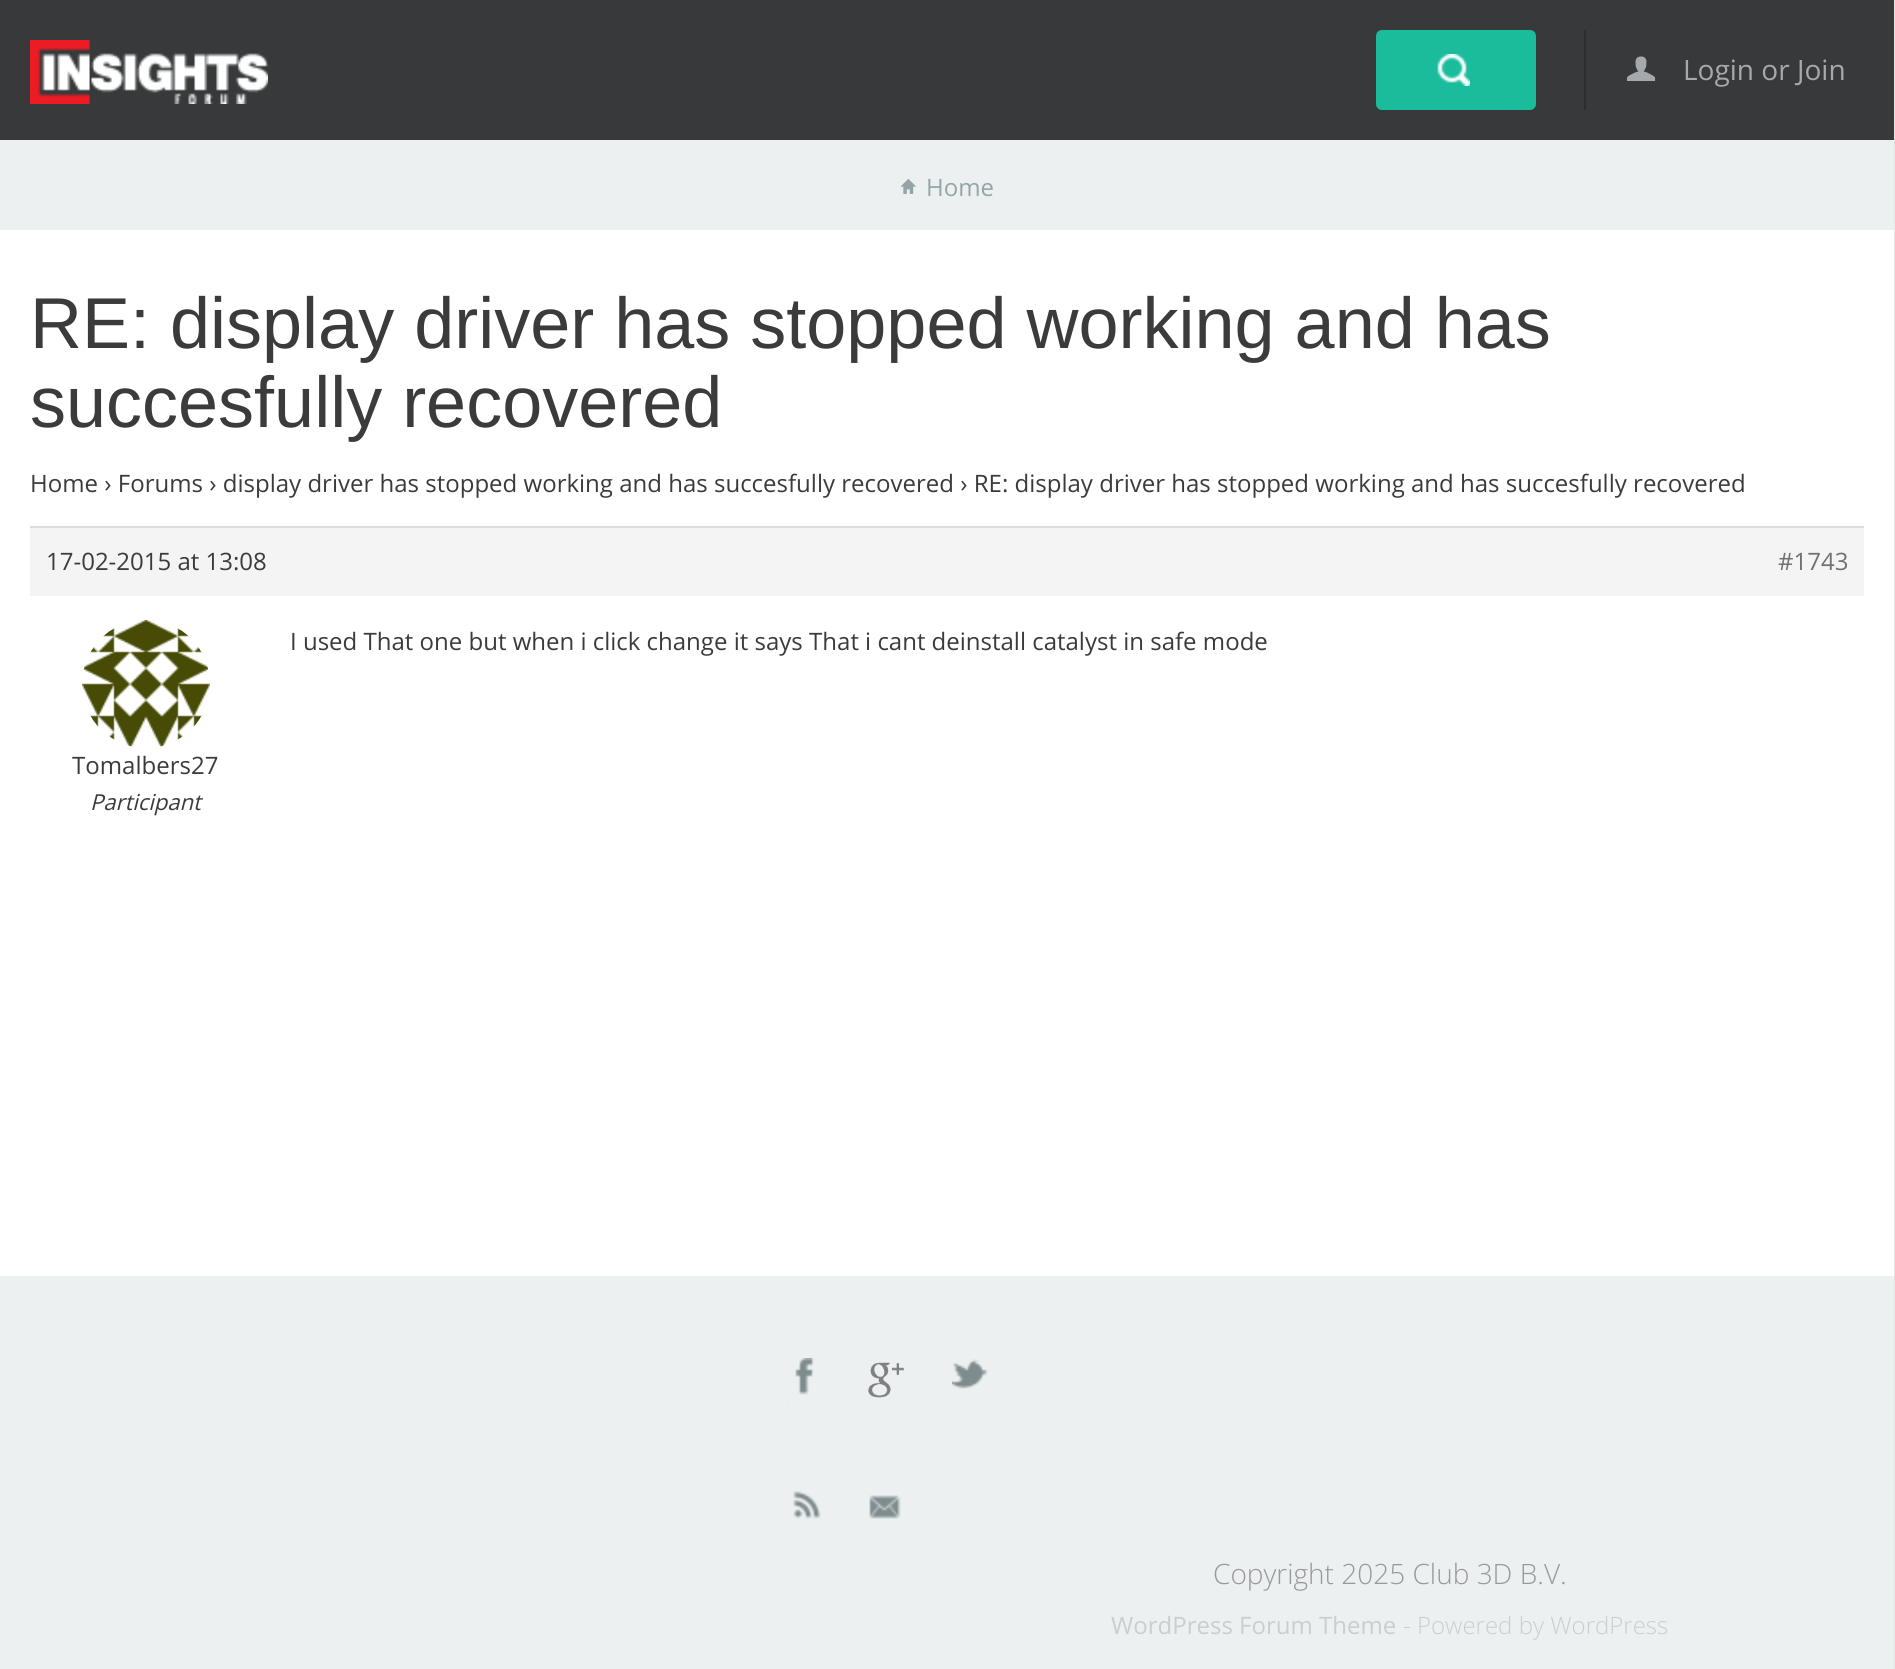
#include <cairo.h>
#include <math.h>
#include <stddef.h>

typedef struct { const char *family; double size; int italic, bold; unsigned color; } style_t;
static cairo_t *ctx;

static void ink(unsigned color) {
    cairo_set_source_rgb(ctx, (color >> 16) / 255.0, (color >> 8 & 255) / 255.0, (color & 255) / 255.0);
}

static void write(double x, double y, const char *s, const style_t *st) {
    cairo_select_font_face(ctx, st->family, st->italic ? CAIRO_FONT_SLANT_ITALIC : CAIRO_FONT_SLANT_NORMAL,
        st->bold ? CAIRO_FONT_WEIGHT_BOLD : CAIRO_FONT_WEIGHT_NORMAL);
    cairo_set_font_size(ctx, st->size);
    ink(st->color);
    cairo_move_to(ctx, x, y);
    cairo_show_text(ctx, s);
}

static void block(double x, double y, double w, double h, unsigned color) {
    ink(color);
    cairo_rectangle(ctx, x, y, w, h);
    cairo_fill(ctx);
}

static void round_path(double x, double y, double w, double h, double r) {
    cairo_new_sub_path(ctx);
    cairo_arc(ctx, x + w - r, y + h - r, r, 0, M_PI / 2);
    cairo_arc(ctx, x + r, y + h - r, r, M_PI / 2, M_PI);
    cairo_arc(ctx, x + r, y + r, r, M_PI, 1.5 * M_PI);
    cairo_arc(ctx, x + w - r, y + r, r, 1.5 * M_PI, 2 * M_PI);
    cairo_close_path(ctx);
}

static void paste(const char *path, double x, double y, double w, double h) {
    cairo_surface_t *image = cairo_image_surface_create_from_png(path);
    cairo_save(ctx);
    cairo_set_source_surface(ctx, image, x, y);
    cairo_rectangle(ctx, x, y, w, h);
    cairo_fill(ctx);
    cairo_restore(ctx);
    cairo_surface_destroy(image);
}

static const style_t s1 = {"Open Sans", 28, 0, 0, 0xa5a9ac};
static const style_t s2 = {"Open Sans", 24, 0, 0, 0x95a5a6};
static const style_t s3 = {"Liberation Sans", 72, 0, 0, 0x3b3b3b};
static const style_t s4 = {"Open Sans", 24, 0, 0, 0x3b3b3b};
static const style_t s5 = {"Open Sans", 24, 0, 0, 0x707070};
static const style_t s6 = {"Open Sans", 22, 1, 0, 0x3b3b3b};
static const style_t s7 = {"Open Sans Light", 28, 0, 0, 0x999999};
static const style_t s8 = {"Open Sans", 24, 0, 0, 0xc9ced1};
static const style_t s9 = {"Open Sans Light", 24, 0, 0, 0xc9ced1};

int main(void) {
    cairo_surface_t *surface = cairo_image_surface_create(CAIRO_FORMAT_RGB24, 1895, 1669);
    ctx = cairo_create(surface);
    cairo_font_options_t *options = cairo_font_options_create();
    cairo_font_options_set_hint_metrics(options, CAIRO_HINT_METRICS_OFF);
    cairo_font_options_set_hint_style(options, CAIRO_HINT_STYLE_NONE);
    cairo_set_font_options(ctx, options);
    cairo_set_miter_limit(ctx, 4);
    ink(0xffffff);
    cairo_paint(ctx);
    block(1894, 0, 1, 1669, 0xe5e5e5);
    block(0, 0, 1894, 140, 0x37393a);
    paste("pic1.png", 30, 40, 238, 64);
    ink(0x1abc9c);
    round_path(1376, 30, 160, 80, 6);
    cairo_fill(ctx);
    paste("pic2.png", 1437, 54, 33, 32);
    block(1584, 30, 2, 80, 0x2c2e2e);
    paste("pic3.png", 1627, 56, 29, 25);
    write(1683, 80, "Login or Join", &s1);
    block(0, 140, 1894, 90, 0xecf0f1);
    paste("pic4.png", 900, 178, 16, 16);
    write(926, 196, "Home", &s2);
    write(30, 348, "RE: display driver has stopped working and has", &s3);
    write(30, 427, "succesfully recovered", &s3);
    write(30, 492, "Home › Forums › display driver has stopped working and has succesfully recovered › RE: display driver has stopped working and has succesfully recovered", &s4);
    block(30, 528, 1834, 68, 0xf4f4f4);
    block(30, 526, 1834, 2, 0xdddddd);
    write(46, 570, "17-02-2015 at 13:08", &s4);
    write(1778, 570, "#1743", &s5);
    write(290, 650, "I used That one but when i click change it says That i cant deinstall catalyst in safe mode", &s4);
    paste("pic5.png", 82, 620, 128, 127);
    write(72, 774, "Tomalbers27", &s4);
    write(90, 810, "Participant", &s6);
    block(0, 1276, 1894, 393, 0xecf0f1);
    paste("pic6.png", 788, 1358, 26, 48);
    paste("pic7.png", 868, 1362, 36, 36);
    paste("pic8.png", 952, 1359, 36, 30);
    paste("pic9.png", 793, 1491, 28, 28);
    paste("pic10.png", 869, 1495, 32, 24);
    write(1213, 1584, "Copyright 2025 Club 3D B.V.", &s7);
    write(1111, 1634, "WordPress Forum Theme", &s8);
    write(1403, 1634, "- Powered by WordPress", &s9);
    cairo_surface_write_to_png(surface, "screenshot.png");
    cairo_font_options_destroy(options);
    cairo_destroy(ctx);
    cairo_surface_destroy(surface);
    return 0;
}
